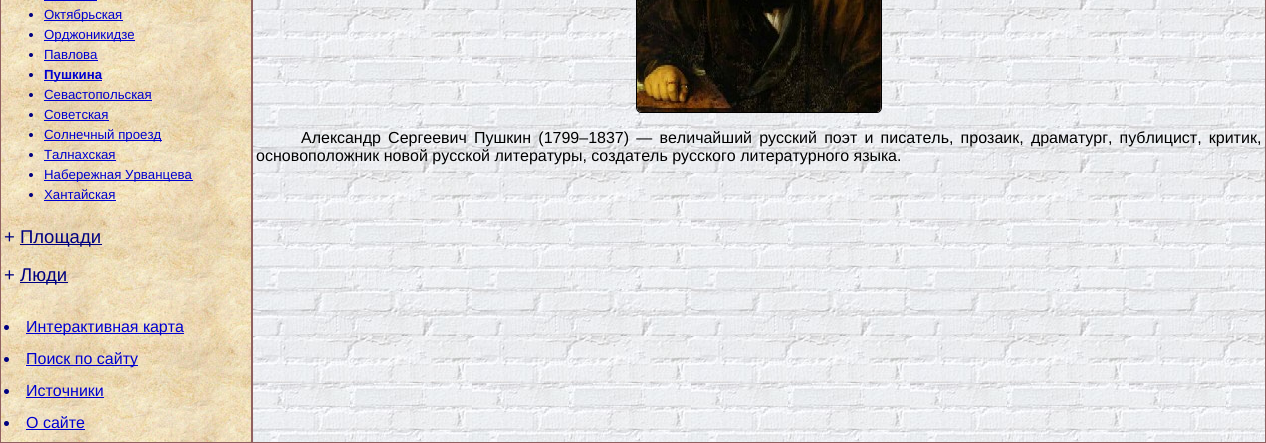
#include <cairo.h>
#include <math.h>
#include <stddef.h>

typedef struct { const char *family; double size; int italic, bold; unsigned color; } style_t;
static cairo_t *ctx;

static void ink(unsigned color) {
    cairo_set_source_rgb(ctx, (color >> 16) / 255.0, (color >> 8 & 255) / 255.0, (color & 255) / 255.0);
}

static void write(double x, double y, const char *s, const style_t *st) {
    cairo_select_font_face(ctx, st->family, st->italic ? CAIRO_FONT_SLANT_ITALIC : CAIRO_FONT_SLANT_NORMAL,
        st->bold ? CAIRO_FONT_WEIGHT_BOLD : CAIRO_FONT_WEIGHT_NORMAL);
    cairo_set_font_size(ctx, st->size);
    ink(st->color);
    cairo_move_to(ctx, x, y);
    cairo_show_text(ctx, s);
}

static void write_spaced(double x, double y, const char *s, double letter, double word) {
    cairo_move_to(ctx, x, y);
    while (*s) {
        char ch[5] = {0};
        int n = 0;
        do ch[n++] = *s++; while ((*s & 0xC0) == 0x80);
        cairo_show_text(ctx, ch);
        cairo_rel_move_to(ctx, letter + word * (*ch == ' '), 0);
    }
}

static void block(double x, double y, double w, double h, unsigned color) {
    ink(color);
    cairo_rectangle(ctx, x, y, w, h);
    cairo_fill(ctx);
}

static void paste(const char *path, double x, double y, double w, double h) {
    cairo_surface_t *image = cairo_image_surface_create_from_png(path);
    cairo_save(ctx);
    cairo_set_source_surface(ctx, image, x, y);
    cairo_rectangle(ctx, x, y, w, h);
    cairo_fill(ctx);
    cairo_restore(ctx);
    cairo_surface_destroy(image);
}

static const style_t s1 = {"Liberation Sans", 13.25, 0, 0, 0x0000d0};
static const style_t s2 = {"Liberation Sans", 13.25, 0, 1, 0x0000d0};
static const style_t s3 = {"Liberation Sans", 18.5, 0, 0, 0x000080};
static const style_t s4 = {"Liberation Sans", 16, 0, 0, 0x0000d0};
static const style_t s5 = {"Liberation Sans", 16, 0, 0, 0x000000};

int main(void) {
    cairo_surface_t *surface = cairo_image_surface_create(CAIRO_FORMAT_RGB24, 1266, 443);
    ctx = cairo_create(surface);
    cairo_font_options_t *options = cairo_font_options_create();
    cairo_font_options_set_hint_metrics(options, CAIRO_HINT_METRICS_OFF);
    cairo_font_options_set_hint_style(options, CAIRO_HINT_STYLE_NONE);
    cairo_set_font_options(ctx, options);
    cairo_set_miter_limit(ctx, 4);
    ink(0xffffff);
    cairo_paint(ctx);
    paste("pic1.png", 1, 0, 250, 442);
    cairo_rectangle(ctx, 0.5, -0.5, 251, 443);
    ink(0x906060);
    cairo_set_line_width(ctx, 1);
    cairo_stroke(ctx);
    block(44, 0, 53, 1, 0x0000d0);
    ink(0x000080);
    cairo_arc(ctx, 31, 15, 2, 0, 2 * M_PI);
    cairo_fill(ctx);
    block(44, 20, 79, 1, 0x0000d0);
    write(44, 19, "Октябрьская", &s1);
    ink(0x000080);
    cairo_new_path(ctx);
    cairo_arc(ctx, 31, 35, 2, 0, 2 * M_PI);
    cairo_fill(ctx);
    block(44, 40, 91, 1, 0x0000d0);
    write(44, 39, "Орджоникидзе", &s1);
    ink(0x000080);
    cairo_new_path(ctx);
    cairo_arc(ctx, 31, 55, 2, 0, 2 * M_PI);
    cairo_fill(ctx);
    write(44, 59, "Павлова", &s1);
    block(44, 60, 54, 1, 0x0000d0);
    ink(0x000080);
    cairo_new_path(ctx);
    cairo_arc(ctx, 31, 75, 2, 0, 2 * M_PI);
    cairo_fill(ctx);
    block(44, 80, 58, 1, 0x0000d0);
    write(44, 79, "Пушкина", &s2);
    ink(0x000080);
    cairo_new_path(ctx);
    cairo_arc(ctx, 31, 95, 2, 0, 2 * M_PI);
    cairo_fill(ctx);
    write(44, 99, "Севастопольская", &s1);
    block(44, 100, 108, 1, 0x0000d0);
    ink(0x000080);
    cairo_new_path(ctx);
    cairo_arc(ctx, 31, 115, 2, 0, 2 * M_PI);
    cairo_fill(ctx);
    write(44, 119, "Советская", &s1);
    block(44, 120, 65, 1, 0x0000d0);
    ink(0x000080);
    cairo_new_path(ctx);
    cairo_arc(ctx, 31, 135, 2, 0, 2 * M_PI);
    cairo_fill(ctx);
    block(44, 140, 118, 1, 0x0000d0);
    write(44, 139, "Солнечный проезд", &s1);
    ink(0x000080);
    cairo_new_path(ctx);
    cairo_arc(ctx, 31, 155, 2, 0, 2 * M_PI);
    cairo_fill(ctx);
    write(44, 159, "Талнахская", &s1);
    block(44, 160, 72, 1, 0x0000d0);
    ink(0x000080);
    cairo_new_path(ctx);
    cairo_arc(ctx, 31, 175, 2, 0, 2 * M_PI);
    cairo_fill(ctx);
    block(44, 180, 149, 1, 0x0000d0);
    write(44, 179, "Набережная Урванцева", &s1);
    ink(0x000080);
    cairo_new_path(ctx);
    cairo_arc(ctx, 31, 195, 2, 0, 2 * M_PI);
    cairo_fill(ctx);
    write(44, 199, "Хантайская", &s1);
    block(44, 200, 72, 1, 0x0000d0);
    write(4, 243, "+", &s3);
    block(20, 244, 82, 1, 0x000080);
    write(20, 243, "Площади", &s3);
    write(4, 281, "+", &s3);
    block(20, 282, 48, 1, 0x000080);
    write(20, 281, "Люди", &s3);
    cairo_new_path(ctx);
    cairo_arc(ctx, 6.5, 327.5, 2.5, 0, 2 * M_PI);
    cairo_fill(ctx);
    block(26, 333, 158, 1, 0x0000d0);
    write(26, 332, "Интерактивная карта", &s4);
    ink(0x000080);
    cairo_new_path(ctx);
    cairo_arc(ctx, 6.5, 359.5, 2.5, 0, 2 * M_PI);
    cairo_fill(ctx);
    block(26, 365, 112, 1, 0x0000d0);
    write(26, 364, "Поиск по сайту", &s4);
    ink(0x000080);
    cairo_new_path(ctx);
    cairo_arc(ctx, 6.5, 391.5, 2.5, 0, 2 * M_PI);
    cairo_fill(ctx);
    write(26, 396, "Источники", &s4);
    block(26, 397, 78, 1, 0x0000d0);
    ink(0x000080);
    cairo_new_path(ctx);
    cairo_arc(ctx, 6.5, 423.5, 2.5, 0, 2 * M_PI);
    cairo_fill(ctx);
    write(26, 428, "О сайте", &s4);
    block(26, 429, 59, 1, 0x0000d0);
    paste("pic2.png", 253, 0, 1012, 442);
    cairo_rectangle(ctx, 252.5, -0.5, 1013, 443);
    ink(0x906060);
    cairo_stroke(ctx);
    cairo_new_path(ctx);
    cairo_move_to(ctx, 641, -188.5);
    cairo_line_to(ctx, 877, -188.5);
    cairo_curve_to(ctx, 879.5, -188.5, 881.5, -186, 881.5, -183);
    cairo_line_to(ctx, 881.5, 107);
    cairo_curve_to(ctx, 881.5, 110, 879.5, 112.5, 877, 112.5);
    cairo_line_to(ctx, 641, 112.5);
    cairo_curve_to(ctx, 638.5, 112.5, 636.5, 110, 636.5, 107);
    cairo_line_to(ctx, 636.5, -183);
    cairo_curve_to(ctx, 636.5, -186, 638.5, -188.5, 641, -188.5);
    cairo_close_path(ctx);
    ink(0x000000);
    cairo_stroke(ctx);
    paste("pic3.png", 637, 0, 244, 112);
    write_spaced(301, 143, "Александр Сергеевич Пушкин (1799–1837) — величайший русский поэт и писатель, прозаик, драматург, публицист, критик,", 0, 2.75);
    write(256, 161, "основоположник новой русской литературы, создатель русского литературного языка.", &s5);
    cairo_surface_write_to_png(surface, "screenshot.png");
    cairo_font_options_destroy(options);
    cairo_destroy(ctx);
    cairo_surface_destroy(surface);
    return 0;
}
